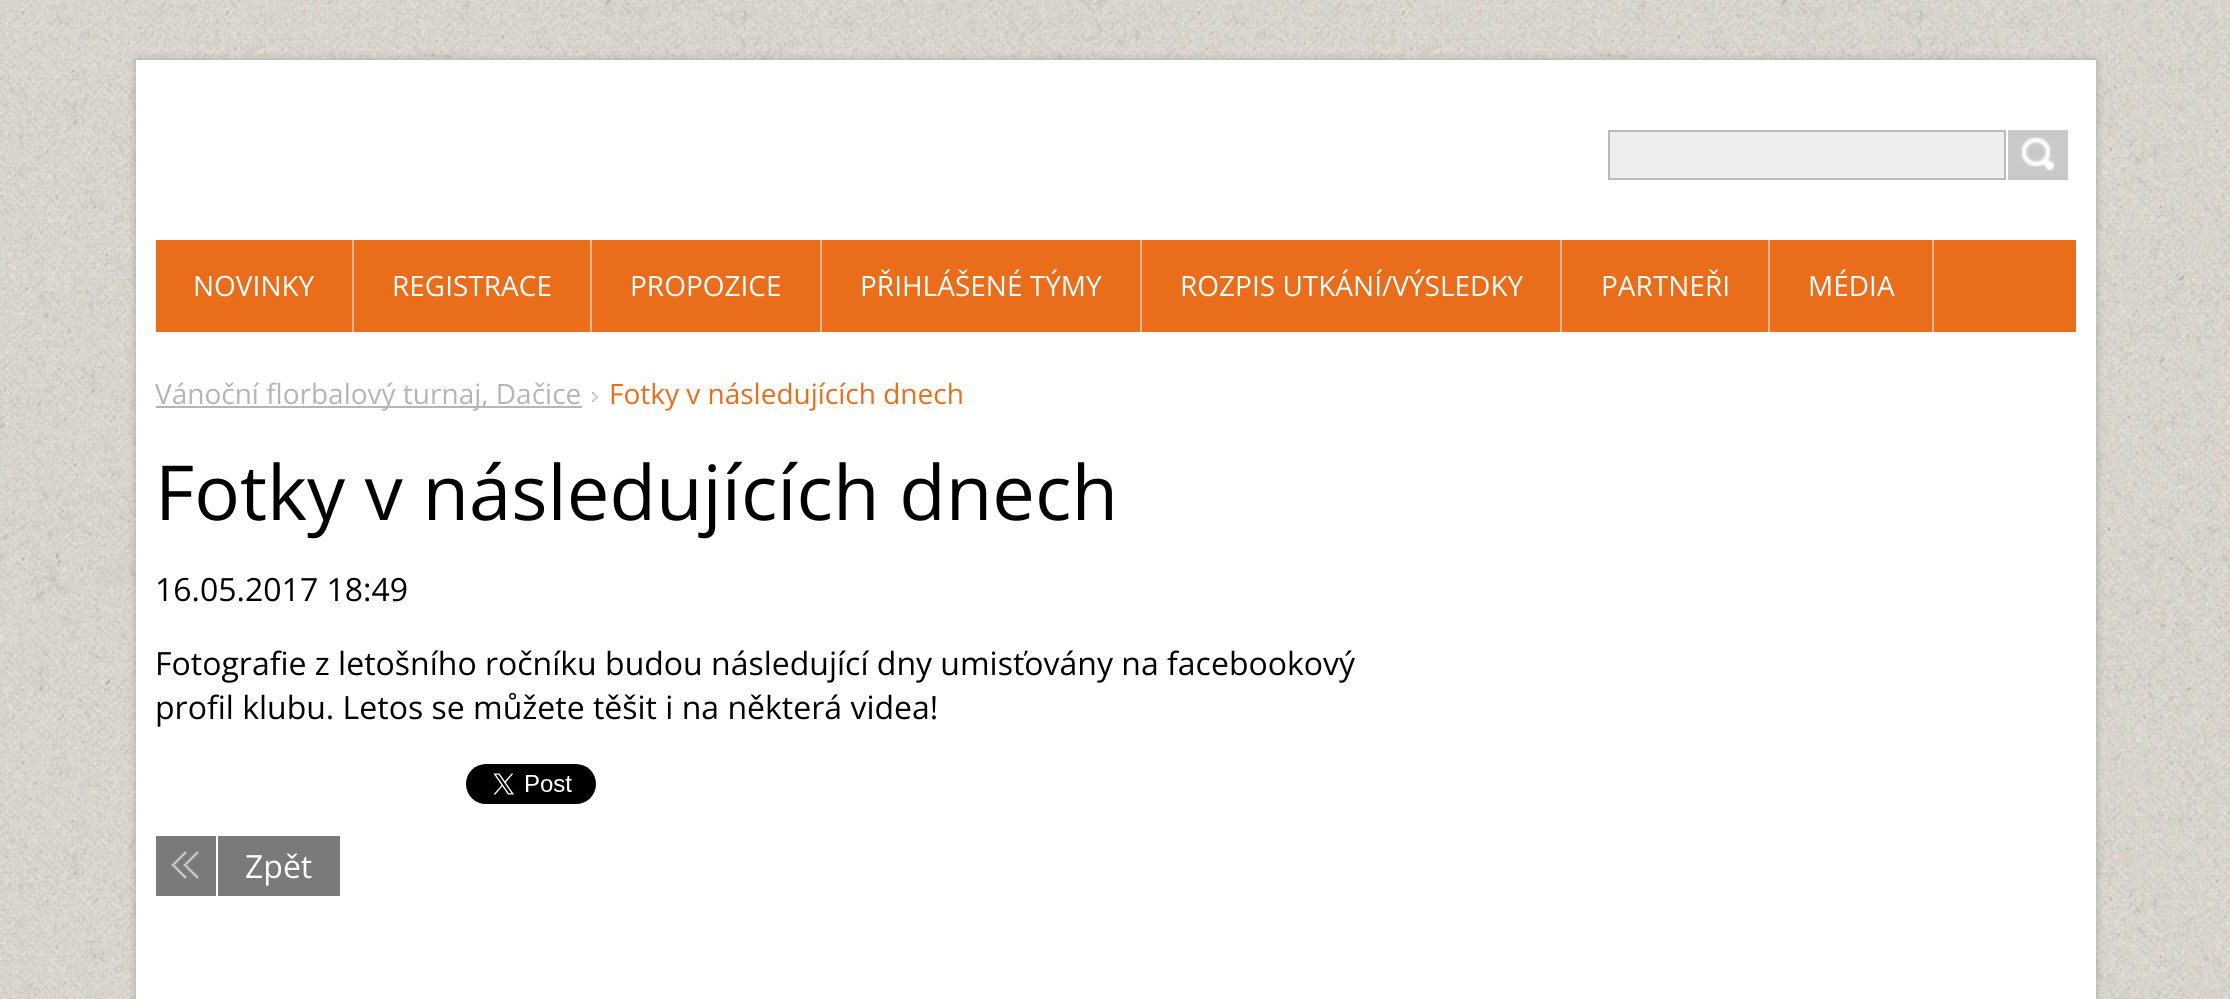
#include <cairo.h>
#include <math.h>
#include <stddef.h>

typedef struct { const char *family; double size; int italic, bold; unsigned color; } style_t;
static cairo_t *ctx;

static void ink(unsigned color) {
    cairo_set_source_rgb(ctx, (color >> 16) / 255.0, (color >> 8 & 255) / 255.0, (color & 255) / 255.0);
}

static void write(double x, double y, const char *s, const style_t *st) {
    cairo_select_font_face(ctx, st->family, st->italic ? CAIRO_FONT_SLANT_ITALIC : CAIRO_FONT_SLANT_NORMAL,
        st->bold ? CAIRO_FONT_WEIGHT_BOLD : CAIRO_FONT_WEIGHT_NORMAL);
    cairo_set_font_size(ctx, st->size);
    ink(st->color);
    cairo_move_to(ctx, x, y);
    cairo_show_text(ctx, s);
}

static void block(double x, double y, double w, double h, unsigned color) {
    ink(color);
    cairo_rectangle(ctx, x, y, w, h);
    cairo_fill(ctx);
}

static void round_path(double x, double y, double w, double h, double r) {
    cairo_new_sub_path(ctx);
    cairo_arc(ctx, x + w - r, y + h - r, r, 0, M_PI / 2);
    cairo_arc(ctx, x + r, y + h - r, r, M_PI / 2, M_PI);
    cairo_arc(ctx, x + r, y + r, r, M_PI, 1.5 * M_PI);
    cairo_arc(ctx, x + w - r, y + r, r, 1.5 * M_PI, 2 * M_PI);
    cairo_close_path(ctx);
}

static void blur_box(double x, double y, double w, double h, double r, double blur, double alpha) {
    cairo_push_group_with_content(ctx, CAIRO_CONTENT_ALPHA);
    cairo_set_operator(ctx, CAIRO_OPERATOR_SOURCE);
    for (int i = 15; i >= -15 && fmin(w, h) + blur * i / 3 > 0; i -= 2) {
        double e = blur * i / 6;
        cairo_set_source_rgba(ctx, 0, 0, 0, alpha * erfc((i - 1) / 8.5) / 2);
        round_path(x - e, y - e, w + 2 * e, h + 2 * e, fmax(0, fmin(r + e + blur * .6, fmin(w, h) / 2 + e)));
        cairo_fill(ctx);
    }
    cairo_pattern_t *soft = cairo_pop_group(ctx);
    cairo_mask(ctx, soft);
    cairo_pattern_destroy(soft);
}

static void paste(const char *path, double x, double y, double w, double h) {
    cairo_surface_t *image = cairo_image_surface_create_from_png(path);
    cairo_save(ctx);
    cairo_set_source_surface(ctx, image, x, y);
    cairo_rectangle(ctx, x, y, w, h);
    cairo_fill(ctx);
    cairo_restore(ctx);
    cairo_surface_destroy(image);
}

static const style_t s1 = {"Open Sans", 28, 0, 0, 0xffffff};
static const style_t s2 = {"Open Sans", 28, 0, 0, 0xb5b5b5};
static const style_t s3 = {"Open Sans", 28, 0, 0, 0xe96d1a};
static const style_t s4 = {"Open Sans", 76, 0, 0, 0x000000};
static const style_t s5 = {"Open Sans", 32, 0, 0, 0x000000};
static const style_t s6 = {"Open Sans", 32, 0, 0, 0xffffff};

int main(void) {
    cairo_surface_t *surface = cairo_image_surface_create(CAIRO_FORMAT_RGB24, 2230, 999);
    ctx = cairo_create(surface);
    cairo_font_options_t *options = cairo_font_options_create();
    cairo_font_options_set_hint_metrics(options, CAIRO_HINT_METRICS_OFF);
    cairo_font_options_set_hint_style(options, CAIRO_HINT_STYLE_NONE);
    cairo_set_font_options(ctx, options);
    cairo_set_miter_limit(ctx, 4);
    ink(0xffffff);
    cairo_paint(ctx);
    paste("pic1.png", 0, 0, 2230, 999);
    ink(0x989898);
    blur_box(136, 60, 1960, 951, 0, 4, 0.75);
    block(136, 60, 1960, 939, 0xffffff);
    ink(0xeeeeee);
    cairo_rectangle(ctx, 1609, 131, 396, 48);
    cairo_fill_preserve(ctx);
    ink(0xbbbbbb);
    cairo_stroke(ctx);
    block(2008, 130, 60, 50, 0xc9c9c9);
    paste("pic2.png", 2021, 137, 34, 34);
    block(156, 240, 1920, 92, 0xe96d1a);
    block(352, 240, 2, 92, 0xf4b68d);
    write(193, 296, "NOVINKY", &s1);
    block(590, 240, 2, 92, 0xf4b68d);
    write(392, 296, "REGISTRACE", &s1);
    block(820, 240, 2, 92, 0xf4b68d);
    write(630, 296, "PROPOZICE", &s1);
    block(1140, 240, 2, 92, 0xf4b68d);
    write(860, 296, "PŘIHLÁŠENÉ TÝMY", &s1);
    block(1560, 240, 2, 92, 0xf4b68d);
    write(1180, 296, "ROZPIS UTKÁNÍ/VÝSLEDKY", &s1);
    block(1768, 240, 2, 92, 0xf4b68d);
    write(1601, 296, "PARTNEŘI", &s1);
    block(1932, 240, 2, 92, 0xf4b68d);
    write(1808, 296, "MÉDIA", &s1);
    block(156, 406, 426, 2, 0xb5b5b5);
    write(155, 404, "Vánoční florbalový turnaj, Dačice", &s2);
    paste("pic3.png", 592, 392, 6, 10);
    write(609, 404, "Fotky v následujících dnech", &s3);
    write(155, 520, "Fotky v následujících dnech", &s4);
    write(155, 601, "16.05.2017 18:49", &s5);
    write(155, 675, "Fotografie z letošního ročníku budou následující dny umisťovány na facebookový", &s5);
    write(155, 719, "profil klubu. Letos se můžete těšit i na některá videa!", &s5);
    paste("pic4.png", 466, 764, 130, 40);
    block(156, 836, 184, 60, 0x7a7a7a);
    paste("pic5.png", 171, 851, 28, 28);
    block(216, 836, 2, 60, 0xffffff);
    write(245, 878, "Zpět", &s6);
    cairo_surface_write_to_png(surface, "screenshot.png");
    cairo_font_options_destroy(options);
    cairo_destroy(ctx);
    cairo_surface_destroy(surface);
    return 0;
}
